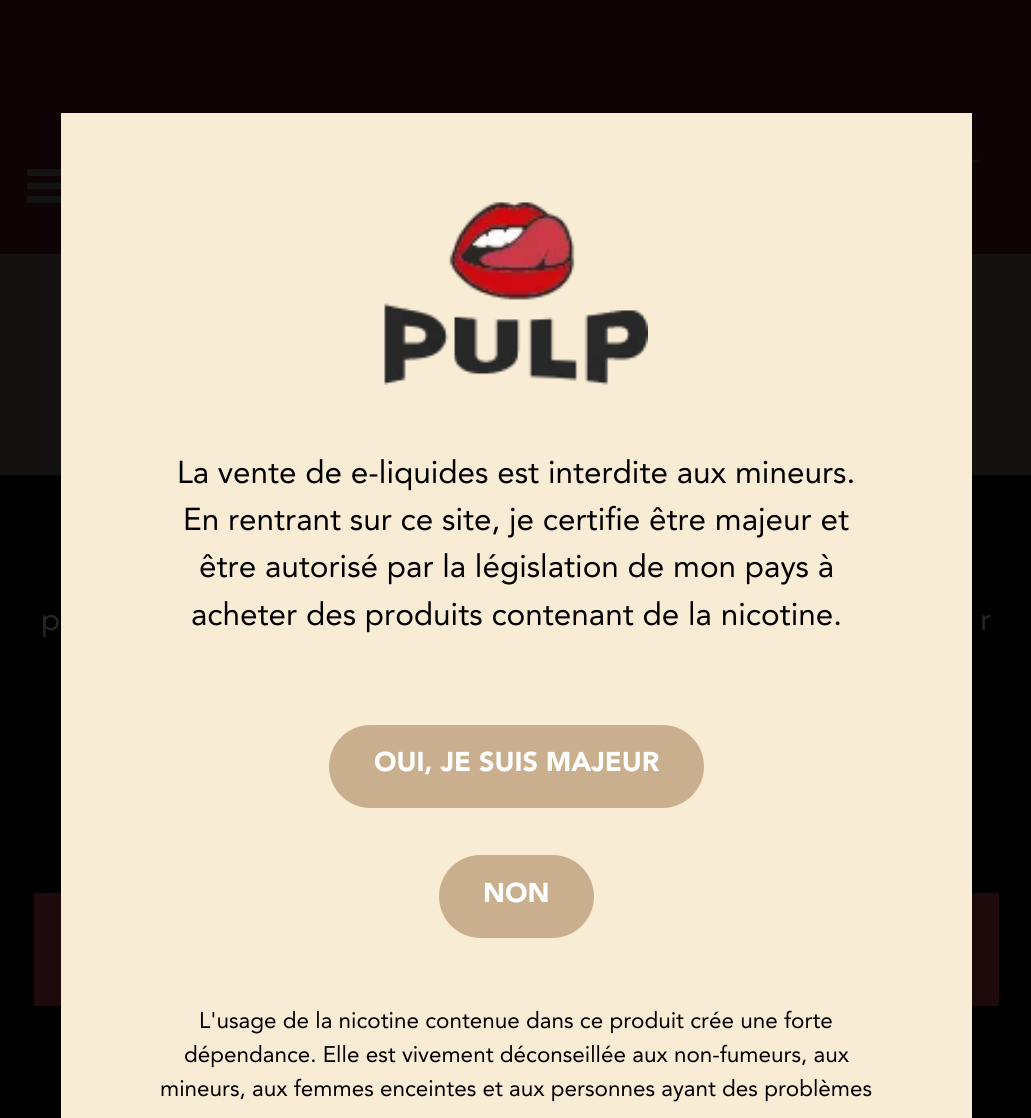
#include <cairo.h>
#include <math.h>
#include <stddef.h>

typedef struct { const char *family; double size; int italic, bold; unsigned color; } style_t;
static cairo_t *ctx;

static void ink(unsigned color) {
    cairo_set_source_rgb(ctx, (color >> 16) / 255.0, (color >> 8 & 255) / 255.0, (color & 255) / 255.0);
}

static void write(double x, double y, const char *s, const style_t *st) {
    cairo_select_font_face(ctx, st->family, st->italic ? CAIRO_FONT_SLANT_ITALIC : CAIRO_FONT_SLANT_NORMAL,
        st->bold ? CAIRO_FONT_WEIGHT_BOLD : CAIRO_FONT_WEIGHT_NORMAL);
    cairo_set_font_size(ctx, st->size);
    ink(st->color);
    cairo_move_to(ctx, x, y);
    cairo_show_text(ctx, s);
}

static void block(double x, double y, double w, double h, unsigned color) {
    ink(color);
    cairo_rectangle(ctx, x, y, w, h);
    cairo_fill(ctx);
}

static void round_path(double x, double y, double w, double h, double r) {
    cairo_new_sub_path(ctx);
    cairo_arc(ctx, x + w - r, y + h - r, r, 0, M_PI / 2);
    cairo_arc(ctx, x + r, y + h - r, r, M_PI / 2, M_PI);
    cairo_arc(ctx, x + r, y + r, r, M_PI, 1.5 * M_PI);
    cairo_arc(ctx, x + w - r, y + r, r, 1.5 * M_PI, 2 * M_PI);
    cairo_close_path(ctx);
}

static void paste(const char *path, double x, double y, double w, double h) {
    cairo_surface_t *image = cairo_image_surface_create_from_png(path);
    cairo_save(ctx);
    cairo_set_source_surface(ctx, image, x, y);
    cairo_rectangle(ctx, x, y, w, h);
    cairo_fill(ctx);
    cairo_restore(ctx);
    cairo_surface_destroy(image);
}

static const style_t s1 = {"Avenir", 31.5, 0, 0, 0x000000};
static const style_t s2 = {"Avenir Black", 27, 0, 0, 0xffffff};
static const style_t s3 = {"Avenir", 22.5, 0, 0, 0x000000};
static const style_t s4 = {"Avenir", 31.5, 0, 0, 0x262626};

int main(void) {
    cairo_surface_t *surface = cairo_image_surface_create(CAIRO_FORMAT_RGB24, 1031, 1118);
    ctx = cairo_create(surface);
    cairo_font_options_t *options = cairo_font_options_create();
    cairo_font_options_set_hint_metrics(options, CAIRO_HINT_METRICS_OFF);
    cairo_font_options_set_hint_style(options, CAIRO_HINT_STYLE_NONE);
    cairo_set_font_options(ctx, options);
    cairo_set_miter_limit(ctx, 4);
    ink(0x131210);
    cairo_paint(ctx);
    block(0, 0, 1031, 254, 0x0f0405);
    block(0, 475, 1031, 643, 0x000000);
    block(34, 893, 965, 113, 0x1e090b);
    block(61, 113, 911, 1005, 0xf9ecd5);
    paste("pic1.png", 384, 202, 264, 183);
    write(177, 483, "La vente de e-liquides est interdite aux mineurs.", &s1);
    write(183, 530, "En rentrant sur ce site, je certifie être majeur et", &s1);
    write(199, 577, "être autorisé par la législation de mon pays à", &s1);
    write(191, 625, "acheter des produits contenant de la nicotine.", &s1);
    ink(0xcaaf8f);
    round_path(329, 725, 375, 83, 41.5);
    cairo_fill(ctx);
    write(374, 771, "OUI, JE SUIS MAJEUR", &s2);
    ink(0xcaaf8f);
    round_path(439, 855, 155, 83, 41.5);
    cairo_fill(ctx);
    write(483, 902, "NON", &s2);
    write(199, 1028, "L'usage de la nicotine contenue dans ce produit crée une forte", &s3);
    write(184, 1062, "dépendance. Elle est vivement déconseillée aux non-fumeurs, aux", &s3);
    write(160, 1096, "mineurs, aux femmes enceintes et aux personnes ayant des problèmes", &s3);
    paste("pic2.png", 972, 159, 9, 5);
    paste("pic3.png", 27, 169, 34, 34);
    write(41, 630, "p", &s4);
    write(980, 630, "r", &s4);
    cairo_surface_write_to_png(surface, "screenshot.png");
    cairo_font_options_destroy(options);
    cairo_destroy(ctx);
    cairo_surface_destroy(surface);
    return 0;
}
